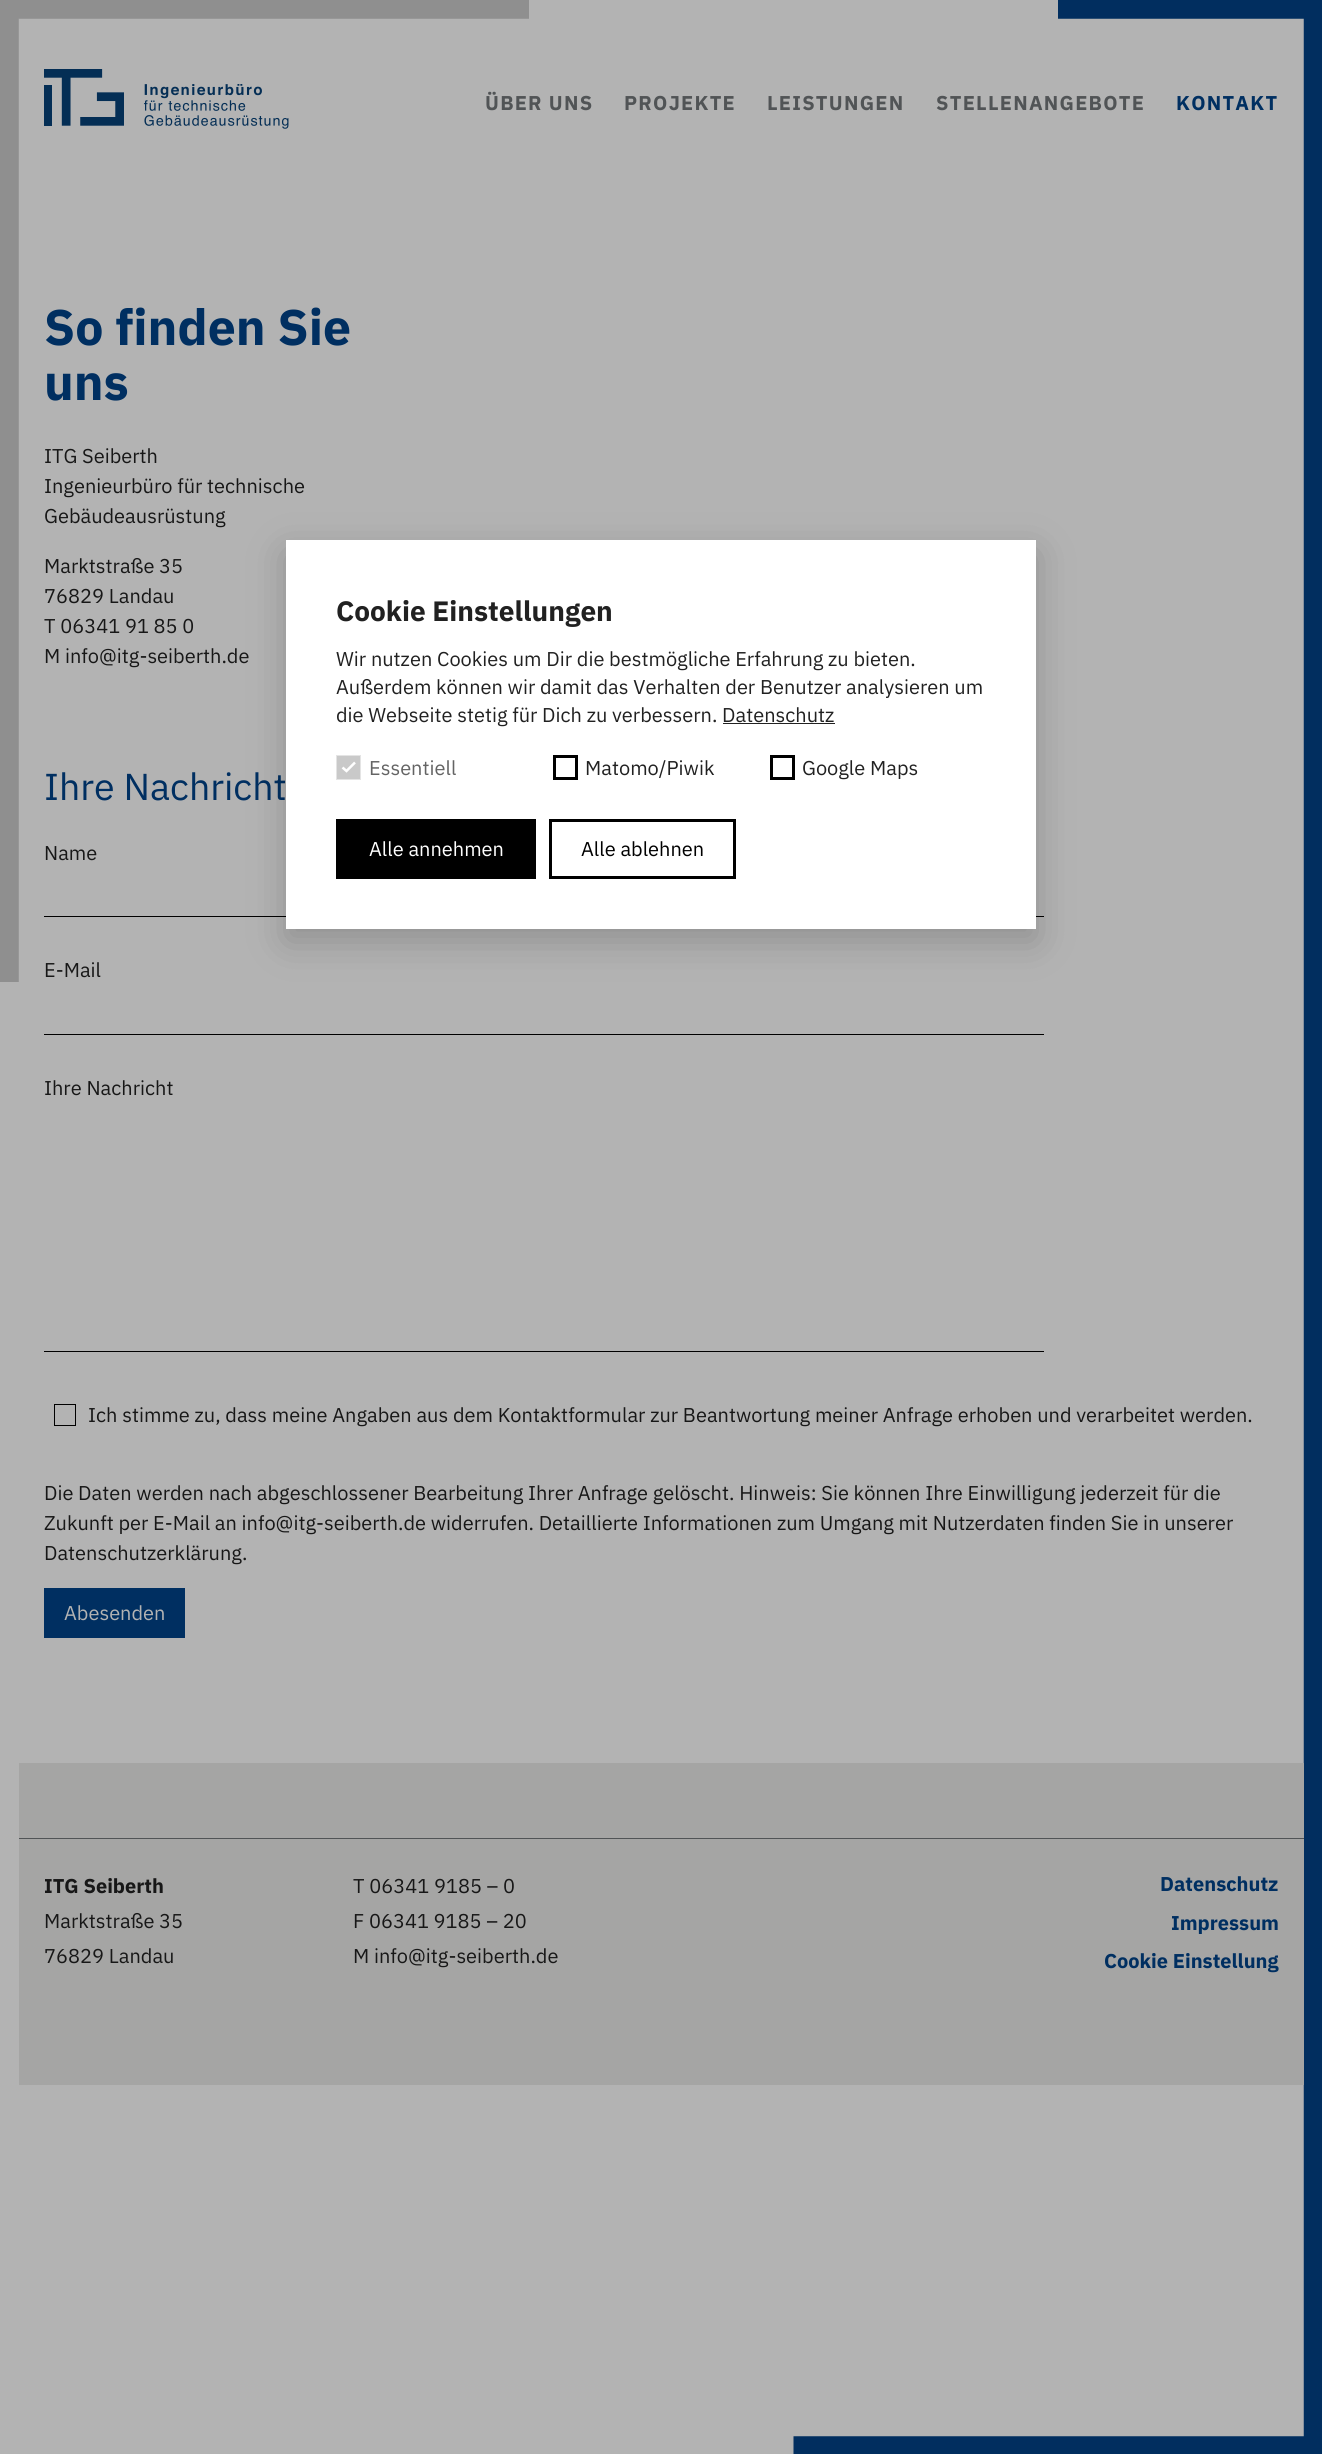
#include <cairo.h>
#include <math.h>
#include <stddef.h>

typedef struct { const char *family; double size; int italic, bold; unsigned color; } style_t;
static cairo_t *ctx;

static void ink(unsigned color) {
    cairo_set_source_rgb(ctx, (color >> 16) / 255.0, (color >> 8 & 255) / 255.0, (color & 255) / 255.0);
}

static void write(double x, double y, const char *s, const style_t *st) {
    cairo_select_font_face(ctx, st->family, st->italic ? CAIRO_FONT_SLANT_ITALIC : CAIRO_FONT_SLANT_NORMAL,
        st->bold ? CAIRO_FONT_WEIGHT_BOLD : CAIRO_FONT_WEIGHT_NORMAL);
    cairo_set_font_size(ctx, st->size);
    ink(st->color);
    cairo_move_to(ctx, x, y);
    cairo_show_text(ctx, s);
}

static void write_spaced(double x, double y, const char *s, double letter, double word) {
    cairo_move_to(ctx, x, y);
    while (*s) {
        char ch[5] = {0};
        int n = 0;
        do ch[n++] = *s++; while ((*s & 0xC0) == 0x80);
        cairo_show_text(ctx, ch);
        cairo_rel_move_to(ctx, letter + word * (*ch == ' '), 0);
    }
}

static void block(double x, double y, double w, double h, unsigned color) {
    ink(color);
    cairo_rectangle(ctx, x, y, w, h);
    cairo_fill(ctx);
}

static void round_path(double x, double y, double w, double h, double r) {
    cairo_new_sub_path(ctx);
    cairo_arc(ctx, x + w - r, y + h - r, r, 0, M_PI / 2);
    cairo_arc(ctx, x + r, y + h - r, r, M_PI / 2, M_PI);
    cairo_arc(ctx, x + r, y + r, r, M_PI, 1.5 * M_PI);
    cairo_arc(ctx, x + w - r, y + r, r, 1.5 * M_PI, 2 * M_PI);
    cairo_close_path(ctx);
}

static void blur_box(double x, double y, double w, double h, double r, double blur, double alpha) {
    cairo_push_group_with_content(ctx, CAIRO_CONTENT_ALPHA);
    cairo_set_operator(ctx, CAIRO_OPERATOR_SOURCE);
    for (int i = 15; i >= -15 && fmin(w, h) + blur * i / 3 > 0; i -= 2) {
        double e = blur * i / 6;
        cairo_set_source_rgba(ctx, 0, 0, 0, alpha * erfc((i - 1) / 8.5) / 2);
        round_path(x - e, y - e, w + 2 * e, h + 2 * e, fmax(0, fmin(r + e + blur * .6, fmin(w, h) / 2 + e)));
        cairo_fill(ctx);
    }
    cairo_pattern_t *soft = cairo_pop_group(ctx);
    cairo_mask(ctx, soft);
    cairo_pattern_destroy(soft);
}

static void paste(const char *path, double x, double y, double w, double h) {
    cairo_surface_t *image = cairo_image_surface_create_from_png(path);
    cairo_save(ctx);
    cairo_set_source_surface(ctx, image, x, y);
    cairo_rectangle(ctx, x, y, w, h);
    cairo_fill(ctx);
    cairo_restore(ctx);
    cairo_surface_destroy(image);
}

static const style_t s1 = {"IBM Plex Sans", 50, 0, 1, 0x002f61};
static const style_t s2 = {"IBM Plex Sans", 20, 0, 0, 0x171717};
static const style_t s3 = {"IBM Plex Sans", 37.5, 0, 0, 0x002f61};
static const style_t s4 = {"IBM Plex Sans", 20, 0, 0, 0xb3b3b3};
static const style_t s5 = {"IBM Plex Sans", 28, 0, 1, 0x212121};
static const style_t s6 = {"IBM Plex Sans", 20, 0, 0, 0x212121};
static const style_t s7 = {"IBM Plex Sans", 20, 0, 0, 0x646464};
static const style_t s8 = {"IBM Plex Sans", 20, 0, 0, 0xffffff};
static const style_t s9 = {"IBM Plex Sans", 20, 0, 0, 0x000000};
static const style_t s10 = {"IBM Plex Sans", 20, 0, 1, 0x171717};
static const style_t s11 = {"IBM Plex Sans", 20, 0, 1, 0x002f61};

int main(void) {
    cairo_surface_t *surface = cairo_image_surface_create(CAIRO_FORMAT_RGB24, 1322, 2454);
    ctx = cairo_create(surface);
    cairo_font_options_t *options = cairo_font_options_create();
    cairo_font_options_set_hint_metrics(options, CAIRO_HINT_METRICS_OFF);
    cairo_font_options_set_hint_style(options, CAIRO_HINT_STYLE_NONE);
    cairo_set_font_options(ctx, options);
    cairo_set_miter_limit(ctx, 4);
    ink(0xb3b3b3);
    cairo_paint(ctx);
    paste("pic1.png", 0, 0, 1322, 2454);
    paste("pic2.png", 44, 69, 245, 60);
    cairo_select_font_face(ctx, "IBM Plex Sans", CAIRO_FONT_SLANT_NORMAL, CAIRO_FONT_WEIGHT_BOLD);
    cairo_set_font_size(ctx, 20);
    ink(0x515456);
    write_spaced(485, 110, "ÜBER UNS", 1.25, 0);
    write_spaced(624, 110, "PROJEKTE", 1.25, 0);
    write_spaced(767, 110, "LEISTUNGEN", 1.25, 0);
    write_spaced(936, 110, "STELLENANGEBOTE", 1.25, 0);
    ink(0x002f61);
    write_spaced(1176, 110, "KONTAKT", 1.25, 0);
    write(44, 345, "So finden Sie", &s1);
    write(44, 400, "uns", &s1);
    write(44, 463, "ITG Seiberth", &s2);
    write(44, 493, "Ingenieurbüro für technische", &s2);
    write(44, 523, "Gebäudeausrüstung", &s2);
    write(44, 573, "Marktstraße 35", &s2);
    write(44, 603, "76829 Landau", &s2);
    write(44, 633, "T 06341 91 85 0", &s2);
    write(44, 663, "M info@itg-seiberth.de", &s2);
    write(44, 800, "Ihre Nachricht", &s3);
    write(44, 860, "Name", &s2);
    block(44, 916, 1000, 1, 0x000000);
    write(44, 977, "E-Mail", &s2);
    block(44, 1034, 1000, 1, 0x000000);
    write(44, 1095, "Ihre Nachricht", &s2);
    block(44, 1351, 1000, 1, 0x000000);
    cairo_rectangle(ctx, 54.5, 1404.5, 21, 21);
    cairo_set_line_width(ctx, 1);
    cairo_stroke(ctx);
    write(88, 1422, "Ich stimme zu, dass meine Angaben aus dem Kontaktformular zur Beantwortung meiner Anfrage erhoben und verarbeitet werden.", &s2);
    write(44, 1500, "Die Daten werden nach abgeschlossener Bearbeitung Ihrer Anfrage gelöscht. Hinweis: Sie können Ihre Einwilligung jederzeit für die", &s2);
    write(44, 1530, "Zukunft per E-Mail an info@itg-seiberth.de widerrufen. Detaillierte Informationen zum Umgang mit Nutzerdaten finden Sie in unserer", &s2);
    write(44, 1560, "Datenschutzerklärung.", &s2);
    block(44, 1588, 141, 50, 0x002f61);
    write(64, 1620, "Abesenden", &s4);
    ink(0x000000);
    blur_box(286, 553, 750, 388, 0, 19, 0.2);
    block(286, 540, 750, 389, 0xffffff);
    write(336, 621, "Cookie Einstellungen", &s5);
    write(336, 666, "Wir nutzen Cookies um Dir die bestmögliche Erfahrung zu bieten.", &s6);
    write(336, 694, "Außerdem können wir damit das Verhalten der Benutzer analysieren um", &s6);
    write(336, 722, "die Webseite stetig für Dich zu verbessern. Datenschutz", &s6);
    block(723, 723, 112, 1, 0x212121);
    ink(0xc9c9c9);
    cairo_rectangle(ctx, 336.5, 755.5, 24, 24);
    cairo_fill_preserve(ctx);
    ink(0xe4e4e4);
    cairo_stroke(ctx);
    write(369, 775, "Essentiell", &s7);
    cairo_new_path(ctx);
    cairo_move_to(ctx, 342.5, 767.5);
    cairo_line_to(ctx, 346.5, 771);
    cairo_line_to(ctx, 355, 762.5);
    ink(0xffffff);
    cairo_set_line_width(ctx, 2.5);
    cairo_stroke(ctx);
    cairo_rectangle(ctx, 554.5, 756.5, 22, 22);
    ink(0x000000);
    cairo_set_line_width(ctx, 3);
    cairo_stroke(ctx);
    write(585, 775, "Matomo/Piwik", &s6);
    cairo_rectangle(ctx, 771.5, 756.5, 22, 22);
    ink(0x000000);
    cairo_stroke(ctx);
    write(802, 775, "Google Maps", &s6);
    block(336, 819, 200, 60, 0x000000);
    write(369, 856, "Alle annehmen", &s8);
    cairo_rectangle(ctx, 550.5, 820.5, 184, 57);
    ink(0x000000);
    cairo_stroke(ctx);
    write(581, 856, "Alle ablehnen", &s9);
    block(19, 1763, 1285, 322, 0xa5a5a4);
    block(19, 1838, 1285, 1, 0x515456);
    write(44, 1893, "ITG Seiberth", &s10);
    write(44, 1928, "Marktstraße 35", &s2);
    write(44, 1963, "76829 Landau", &s2);
    write(353, 1893, "T 06341 9185 – 0", &s2);
    write(353, 1928, "F 06341 9185 – 20", &s2);
    write(353, 1963, "M info@itg-seiberth.de", &s2);
    write(1160, 1891, "Datenschutz", &s11);
    write(1171, 1930, "Impressum", &s11);
    write(1104, 1968, "Cookie Einstellung", &s11);
    cairo_surface_write_to_png(surface, "screenshot.png");
    cairo_font_options_destroy(options);
    cairo_destroy(ctx);
    cairo_surface_destroy(surface);
    return 0;
}
